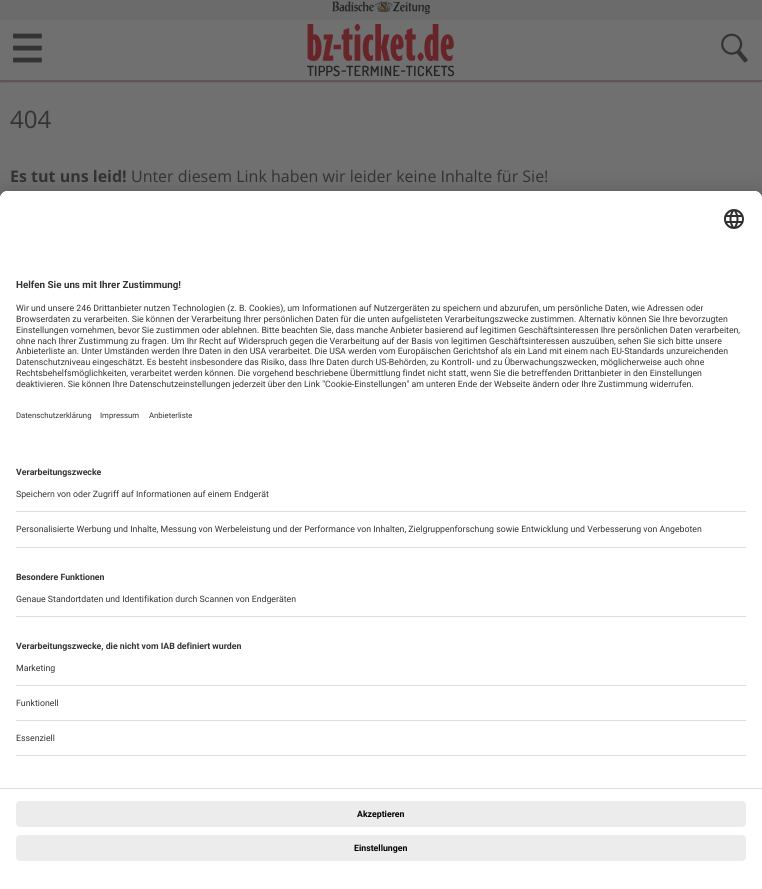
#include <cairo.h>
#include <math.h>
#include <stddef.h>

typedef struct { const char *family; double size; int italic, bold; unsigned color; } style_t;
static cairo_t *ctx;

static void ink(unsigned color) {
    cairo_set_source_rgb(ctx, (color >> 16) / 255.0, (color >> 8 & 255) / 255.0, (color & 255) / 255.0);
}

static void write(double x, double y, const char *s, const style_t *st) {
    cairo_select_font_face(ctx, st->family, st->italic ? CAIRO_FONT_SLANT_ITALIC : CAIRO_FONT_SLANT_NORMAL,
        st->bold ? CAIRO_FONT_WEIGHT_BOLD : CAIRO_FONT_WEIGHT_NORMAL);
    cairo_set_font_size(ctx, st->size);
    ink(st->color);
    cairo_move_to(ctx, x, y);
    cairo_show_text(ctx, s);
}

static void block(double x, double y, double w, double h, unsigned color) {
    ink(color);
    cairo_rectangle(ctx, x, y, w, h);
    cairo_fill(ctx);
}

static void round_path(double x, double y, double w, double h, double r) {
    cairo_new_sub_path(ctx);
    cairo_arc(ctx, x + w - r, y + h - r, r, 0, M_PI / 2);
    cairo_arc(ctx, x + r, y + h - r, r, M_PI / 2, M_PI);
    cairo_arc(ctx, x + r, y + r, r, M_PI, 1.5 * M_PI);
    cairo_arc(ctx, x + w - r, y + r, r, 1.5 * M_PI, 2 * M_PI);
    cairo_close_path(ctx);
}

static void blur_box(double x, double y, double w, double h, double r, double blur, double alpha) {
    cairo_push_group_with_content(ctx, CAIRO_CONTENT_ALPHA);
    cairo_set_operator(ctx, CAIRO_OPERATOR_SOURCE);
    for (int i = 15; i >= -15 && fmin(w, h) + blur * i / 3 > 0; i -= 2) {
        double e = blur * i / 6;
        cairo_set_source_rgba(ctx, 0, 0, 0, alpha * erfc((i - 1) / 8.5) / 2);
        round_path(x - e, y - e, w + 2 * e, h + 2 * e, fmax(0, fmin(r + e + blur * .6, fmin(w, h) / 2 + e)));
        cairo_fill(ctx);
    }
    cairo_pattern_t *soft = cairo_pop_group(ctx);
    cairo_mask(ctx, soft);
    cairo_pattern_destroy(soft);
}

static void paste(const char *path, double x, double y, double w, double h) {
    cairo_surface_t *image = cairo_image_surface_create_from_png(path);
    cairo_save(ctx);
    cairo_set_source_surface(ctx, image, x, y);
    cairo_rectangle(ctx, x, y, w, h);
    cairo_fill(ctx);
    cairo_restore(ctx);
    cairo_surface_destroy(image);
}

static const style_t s1 = {"Open Sans", 24, 0, 0, 0x333333};
static const style_t s2 = {"Open Sans", 16, 0, 1, 0x333333};
static const style_t s3 = {"Open Sans", 16, 0, 0, 0x333333};
static const style_t s4 = {"Roboto", 9.8, 0, 1, 0x333333};
static const style_t s5 = {"Roboto", 8.75, 0, 0, 0x333333};
static const style_t s6 = {"Roboto", 7.75, 0, 0, 0x333333};
static const style_t s7 = {"Roboto", 8.75, 0, 1, 0x333333};
static const style_t s8 = {"Roboto", 8.75, 0, 1, 0x000000};

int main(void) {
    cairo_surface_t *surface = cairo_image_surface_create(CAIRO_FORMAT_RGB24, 762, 889);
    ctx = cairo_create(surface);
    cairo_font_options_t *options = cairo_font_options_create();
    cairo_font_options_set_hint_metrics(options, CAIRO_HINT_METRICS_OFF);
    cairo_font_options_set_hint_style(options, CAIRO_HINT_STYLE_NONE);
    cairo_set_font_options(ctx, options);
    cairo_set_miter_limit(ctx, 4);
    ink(0x707070);
    cairo_paint(ctx);
    cairo_save(ctx);
    cairo_rectangle(ctx, 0, 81, 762, 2);
    cairo_clip(ctx);
    ink(0x242424);
    blur_box(0, 1, 762, 81, 0, 0.5, 0.4);
    cairo_restore(ctx);
    block(0, 80, 762, 1, 0x685351);
    block(0, 0, 762, 20, 0x6b6b6b);
    paste("pic1.png", 332, 1, 98, 13);
    paste("pic2.png", 13, 33, 29, 30);
    paste("pic3.png", 307, 23, 148, 54);
    paste("pic4.png", 721, 33, 27, 30);
    write(10, 128, "404", &s1);
    write(10, 182, "Es tut uns leid!", &s2);
    write(131, 182, "Unter diesem Link haben wir leider keine Inhalte für Sie!", &s3);
    ink(0x000000);
    blur_box(0, 211, 762, 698, 8, 14, 0.3);
    blur_box(0, 196, 762, 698, 8, 13, 0.22);
    ink(0xffffff);
    cairo_new_path(ctx);
    cairo_move_to(ctx, 8, 191);
    cairo_line_to(ctx, 754, 191);
    cairo_curve_to(ctx, 758.5, 191, 762, 194.5, 762, 199);
    cairo_line_to(ctx, 762, 889);
    cairo_line_to(ctx, 0, 889);
    cairo_line_to(ctx, 0, 199);
    cairo_curve_to(ctx, 0, 194.5, 3.5, 191, 8, 191);
    cairo_close_path(ctx);
    cairo_fill(ctx);
    cairo_new_path(ctx);
    cairo_move_to(ctx, 8, 191);
    cairo_line_to(ctx, 754, 191);
    cairo_curve_to(ctx, 758.5, 191, 762, 194.5, 762, 199);
    cairo_line_to(ctx, 762, 788);
    cairo_line_to(ctx, 0, 788);
    cairo_line_to(ctx, 0, 199);
    cairo_curve_to(ctx, 0, 194.5, 3.5, 191, 8, 191);
    cairo_close_path(ctx);
    cairo_fill(ctx);
    cairo_new_path(ctx);
    cairo_move_to(ctx, 8, 191);
    cairo_line_to(ctx, 754, 191);
    cairo_curve_to(ctx, 758.5, 191, 762, 194.5, 762, 199);
    cairo_line_to(ctx, 762, 455);
    cairo_line_to(ctx, 0, 455);
    cairo_line_to(ctx, 0, 199);
    cairo_curve_to(ctx, 0, 194.5, 3.5, 191, 8, 191);
    cairo_close_path(ctx);
    cairo_fill(ctx);
    paste("pic5.png", 724, 209, 20, 20);
    write(16, 288, "Helfen Sie uns mit Ihrer Zustimmung!", &s4);
    write(16, 311, "Wir und unsere 246 Drittanbieter nutzen Technologien (z. B. Cookies), um Informationen auf Nutzergeräten zu speichern und abzurufen, um persönliche Daten, wie Adressen oder", &s5);
    write(16, 322, "Browserdaten zu verarbeiten. Sie können der Verarbeitung Ihrer persönlichen Daten für die unten aufgelisteten Verarbeitungszwecke zustimmen. Alternativ können Sie Ihre bevorzugten", &s5);
    write(16, 333, "Einstellungen vornehmen, bevor Sie zustimmen oder ablehnen. Bitte beachten Sie, dass manche Anbieter basierend auf legitimen Geschäftsinteressen Ihre persönlichen Daten verarbeiten,", &s5);
    write(16, 344, "ohne nach Ihrer Zustimmung zu fragen. Um Ihr Recht auf Widerspruch gegen die Verarbeitung auf der Basis von legitimen Geschäftsinteressen auszuüben, sehen Sie sich bitte unsere", &s5);
    write(16, 354, "Anbieterliste an. Unter Umständen werden Ihre Daten in den USA verarbeitet. Die USA werden vom Europäischen Gerichtshof als ein Land mit einem nach EU-Standards unzureichenden", &s5);
    write(16, 365, "Datenschutzniveau eingeschätzt. Es besteht insbesondere das Risiko, dass Ihre Daten durch US-Behörden, zu Kontroll- und zu Überwachungszwecken, möglicherweise auch ohne", &s5);
    write(16, 376, "Rechtsbehelfsmöglichkeiten, verarbeitet werden können. Die vorgehend beschriebene Übermittlung findet nicht statt, wenn Sie die betreffenden Drittanbieter in den Einstellungen", &s5);
    write(16, 387, "deaktivieren. Sie können Ihre Datenschutzeinstellungen jederzeit über den Link \"Cookie-Einstellungen\" am unteren Ende der Webseite ändern oder Ihre Zustimmung widerrufen.", &s5);
    write(16, 418, "Datenschutzerklärung", &s6);
    write(100, 418, "Impressum", &s6);
    write(149, 418, "Anbieterliste", &s6);
    write(16, 475, "Verarbeitungszwecke", &s7);
    block(16, 511, 730, 1, 0xdddddd);
    write(16, 497, "Speichern von oder Zugriff auf Informationen auf einem Endgerät", &s5);
    block(16, 547, 730, 1, 0xdddddd);
    write(16, 532, "Personalisierte Werbung und Inhalte, Messung von Werbeleistung und der Performance von Inhalten, Zielgruppenforschung sowie Entwicklung und Verbesserung von Angeboten", &s5);
    write(16, 580, "Besondere Funktionen", &s7);
    block(16, 616, 730, 1, 0xdddddd);
    write(16, 602, "Genaue Standortdaten und Identifikation durch Scannen von Endgeräten", &s5);
    write(16, 649, "Verarbeitungszwecke, die nicht vom IAB definiert wurden", &s7);
    block(16, 685, 730, 1, 0xdddddd);
    write(16, 671, "Marketing", &s5);
    block(16, 720, 730, 1, 0xdddddd);
    write(16, 706, "Funktionell", &s5);
    block(16, 755, 730, 1, 0xdddddd);
    write(16, 741, "Essenziell", &s5);
    block(0, 788, 762, 1, 0xdddddd);
    ink(0xececec);
    round_path(16, 801, 730, 26, 4);
    cairo_fill(ctx);
    write(357, 817, "Akzeptieren", &s8);
    ink(0xececec);
    round_path(16, 835, 730, 26, 4);
    cairo_fill(ctx);
    write(354, 851, "Einstellungen", &s8);
    cairo_surface_write_to_png(surface, "screenshot.png");
    cairo_font_options_destroy(options);
    cairo_destroy(ctx);
    cairo_surface_destroy(surface);
    return 0;
}
